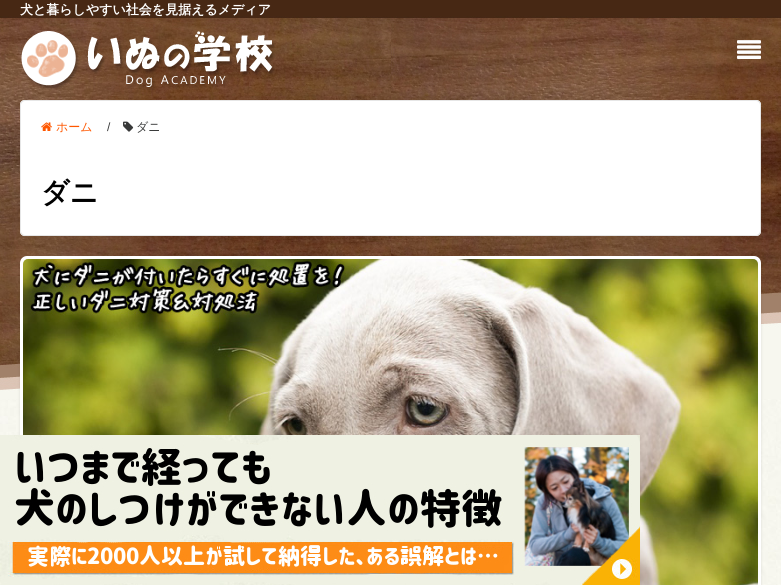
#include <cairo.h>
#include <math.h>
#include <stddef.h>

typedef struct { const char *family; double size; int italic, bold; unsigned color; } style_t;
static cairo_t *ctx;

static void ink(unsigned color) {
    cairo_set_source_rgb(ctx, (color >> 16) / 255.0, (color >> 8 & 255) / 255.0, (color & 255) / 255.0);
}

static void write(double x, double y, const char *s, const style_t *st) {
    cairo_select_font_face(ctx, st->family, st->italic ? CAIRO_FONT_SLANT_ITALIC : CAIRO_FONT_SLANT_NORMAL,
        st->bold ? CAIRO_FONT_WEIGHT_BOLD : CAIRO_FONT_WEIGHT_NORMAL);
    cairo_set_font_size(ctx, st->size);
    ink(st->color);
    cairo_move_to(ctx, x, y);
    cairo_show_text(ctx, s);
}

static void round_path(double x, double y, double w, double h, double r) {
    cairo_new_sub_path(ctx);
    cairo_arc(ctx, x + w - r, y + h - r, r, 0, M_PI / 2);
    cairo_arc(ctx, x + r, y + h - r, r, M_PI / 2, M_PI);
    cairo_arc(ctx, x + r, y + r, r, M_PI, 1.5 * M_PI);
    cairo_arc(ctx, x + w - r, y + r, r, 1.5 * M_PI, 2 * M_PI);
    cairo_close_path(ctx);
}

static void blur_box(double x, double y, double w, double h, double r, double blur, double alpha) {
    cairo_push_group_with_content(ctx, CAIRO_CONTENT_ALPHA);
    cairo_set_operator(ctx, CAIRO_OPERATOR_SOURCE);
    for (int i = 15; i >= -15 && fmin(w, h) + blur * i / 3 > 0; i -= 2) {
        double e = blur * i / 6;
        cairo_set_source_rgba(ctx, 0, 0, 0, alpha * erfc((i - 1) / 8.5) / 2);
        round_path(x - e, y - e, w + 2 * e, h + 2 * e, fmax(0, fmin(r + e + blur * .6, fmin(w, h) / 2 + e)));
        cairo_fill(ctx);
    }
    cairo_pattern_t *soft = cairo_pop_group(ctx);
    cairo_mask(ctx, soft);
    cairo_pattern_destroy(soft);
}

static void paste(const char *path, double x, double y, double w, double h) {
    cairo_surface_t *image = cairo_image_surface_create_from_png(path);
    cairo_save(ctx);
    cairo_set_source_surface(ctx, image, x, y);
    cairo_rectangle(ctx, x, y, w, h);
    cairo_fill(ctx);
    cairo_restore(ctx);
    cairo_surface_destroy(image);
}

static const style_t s1 = {"WenQuanYi Zen Hei", 13, 0, 1, 0xffffff};
static const style_t s2 = {"WenQuanYi Zen Hei Medium", 12, 0, 0, 0xff5700};
static const style_t s3 = {"Liberation Sans", 12, 0, 0, 0x383939};
static const style_t s4 = {"WenQuanYi Zen Hei Medium", 12, 0, 0, 0x383939};
static const style_t s5 = {"WenQuanYi Zen Hei", 28, 0, 1, 0x000000};

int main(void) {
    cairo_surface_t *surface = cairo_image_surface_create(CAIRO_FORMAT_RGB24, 781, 585);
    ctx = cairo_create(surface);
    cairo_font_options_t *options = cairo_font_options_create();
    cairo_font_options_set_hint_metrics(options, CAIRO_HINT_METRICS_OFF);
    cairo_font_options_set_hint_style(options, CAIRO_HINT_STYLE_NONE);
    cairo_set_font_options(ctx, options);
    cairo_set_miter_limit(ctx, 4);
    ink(0xffffff);
    cairo_paint(ctx);
    paste("pic1.png", 0, 399, 781, 186);
    paste("pic2.png", 0, 0, 781, 399);
    write(20, 14, "犬と暮らしやすい社会を見据えるメディア", &s1);
    paste("pic3.png", 21, 31, 254, 59);
    paste("pic4.png", 737, 40, 24, 19);
    cairo_new_path(ctx);
    cairo_move_to(ctx, 25, 100);
    cairo_line_to(ctx, 756, 100);
    cairo_curve_to(ctx, 759, 100, 761, 102, 761, 105);
    cairo_line_to(ctx, 761, 151);
    cairo_line_to(ctx, 20, 151);
    cairo_line_to(ctx, 20, 105);
    cairo_curve_to(ctx, 20, 102, 22, 100, 25, 100);
    cairo_close_path(ctx);
    cairo_fill(ctx);
    ink(0xe6e6e6);
    cairo_set_fill_rule(ctx, CAIRO_FILL_RULE_EVEN_ODD);
    cairo_new_path(ctx);
    cairo_move_to(ctx, 25, 100);
    cairo_line_to(ctx, 756, 100);
    cairo_curve_to(ctx, 759, 100, 761, 102, 761, 105);
    cairo_line_to(ctx, 761, 151);
    cairo_line_to(ctx, 20, 151);
    cairo_line_to(ctx, 20, 105);
    cairo_curve_to(ctx, 20, 102, 22, 100, 25, 100);
    cairo_close_path(ctx);
    cairo_move_to(ctx, 25, 101);
    cairo_line_to(ctx, 756, 101);
    cairo_curve_to(ctx, 758, 101, 760, 103, 760, 105);
    cairo_line_to(ctx, 760, 151);
    cairo_line_to(ctx, 21, 151);
    cairo_line_to(ctx, 21, 105);
    cairo_curve_to(ctx, 21, 103, 23, 101, 25, 101);
    cairo_close_path(ctx);
    cairo_fill(ctx);
    paste("pic5.png", 41, 122, 11, 9);
    write(56, 131, "ホーム", &s2);
    write(107, 131, "/", &s3);
    paste("pic6.png", 123, 121, 11, 11);
    write(136, 131, "ダニ", &s4);
    ink(0xffffff);
    cairo_new_path(ctx);
    cairo_move_to(ctx, 20, 151);
    cairo_line_to(ctx, 761, 151);
    cairo_line_to(ctx, 761, 231);
    cairo_curve_to(ctx, 761, 234, 759, 236, 756, 236);
    cairo_line_to(ctx, 25, 236);
    cairo_curve_to(ctx, 22, 236, 20, 234, 20, 231);
    cairo_close_path(ctx);
    cairo_fill(ctx);
    ink(0xe6e6e6);
    cairo_new_path(ctx);
    cairo_move_to(ctx, 20, 151);
    cairo_line_to(ctx, 761, 151);
    cairo_line_to(ctx, 761, 231);
    cairo_curve_to(ctx, 761, 234, 759, 236, 756, 236);
    cairo_line_to(ctx, 25, 236);
    cairo_curve_to(ctx, 22, 236, 20, 234, 20, 231);
    cairo_close_path(ctx);
    cairo_move_to(ctx, 21, 151);
    cairo_line_to(ctx, 760, 151);
    cairo_line_to(ctx, 760, 231);
    cairo_curve_to(ctx, 760, 233, 758, 235, 756, 235);
    cairo_line_to(ctx, 25, 235);
    cairo_curve_to(ctx, 23, 235, 21, 233, 21, 231);
    cairo_close_path(ctx);
    cairo_fill(ctx);
    write(41, 202, "ダニ", &s5);
    ink(0x000000);
    blur_box(20, 258, 741, 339, 7, 1.5, 0.1);
    ink(0xffffff);
    round_path(20, 256, 741, 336, 7);
    cairo_fill(ctx);
    paste("pic7.png", 23, 259, 735, 326);
    paste("pic8.png", 0, 435, 640, 150);
    cairo_surface_write_to_png(surface, "screenshot.png");
    cairo_font_options_destroy(options);
    cairo_destroy(ctx);
    cairo_surface_destroy(surface);
    return 0;
}
